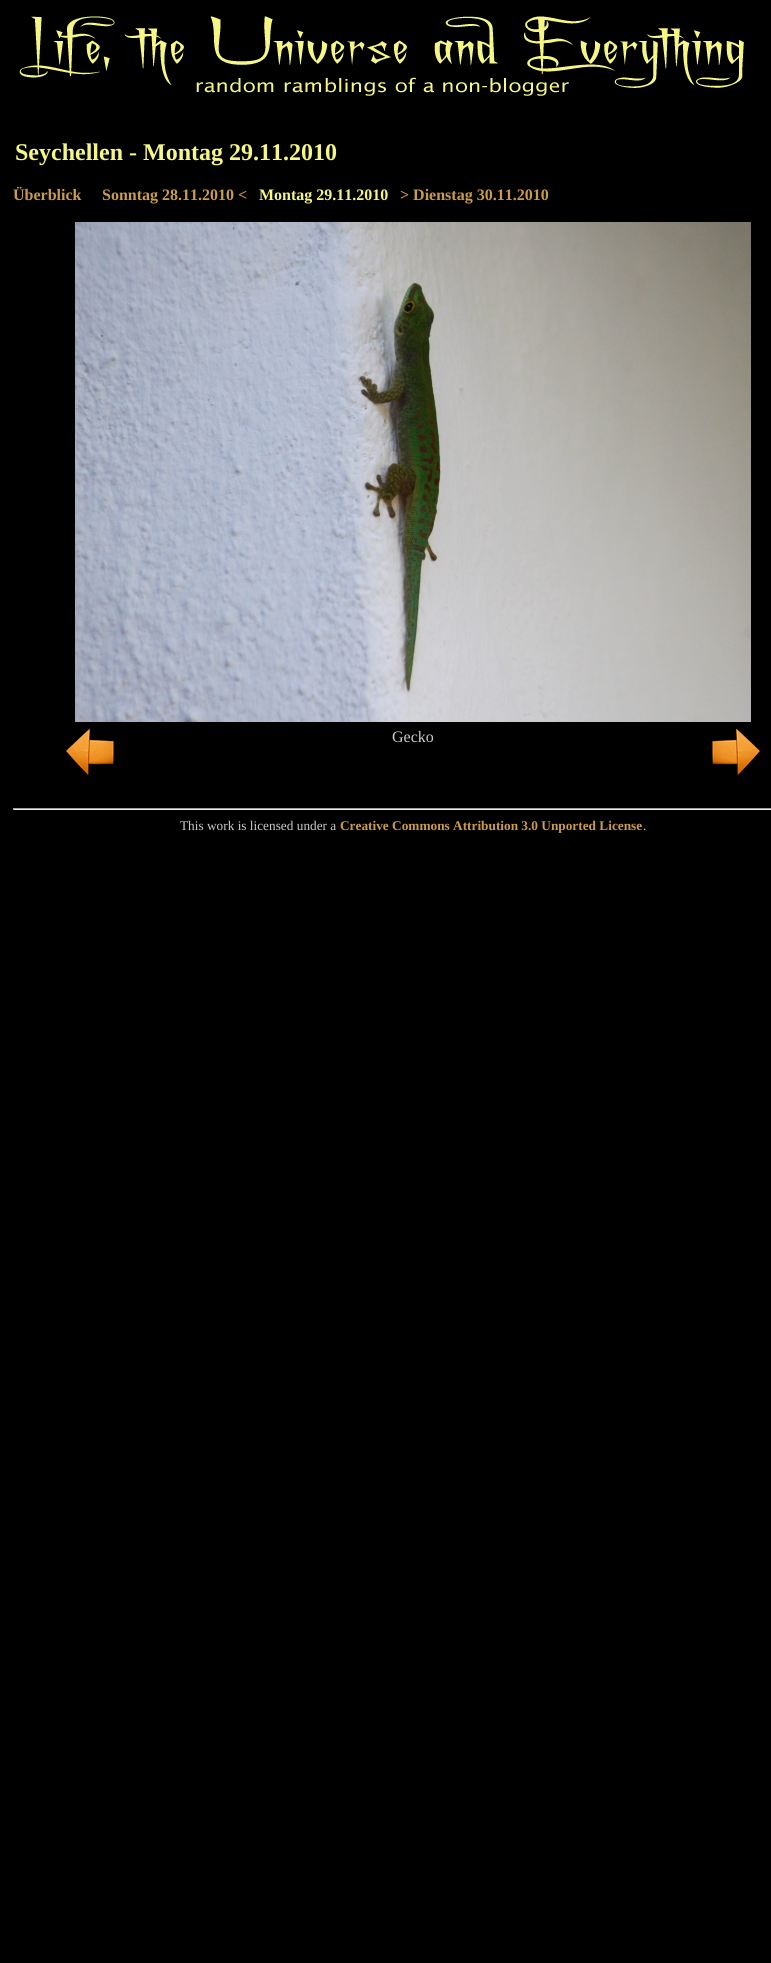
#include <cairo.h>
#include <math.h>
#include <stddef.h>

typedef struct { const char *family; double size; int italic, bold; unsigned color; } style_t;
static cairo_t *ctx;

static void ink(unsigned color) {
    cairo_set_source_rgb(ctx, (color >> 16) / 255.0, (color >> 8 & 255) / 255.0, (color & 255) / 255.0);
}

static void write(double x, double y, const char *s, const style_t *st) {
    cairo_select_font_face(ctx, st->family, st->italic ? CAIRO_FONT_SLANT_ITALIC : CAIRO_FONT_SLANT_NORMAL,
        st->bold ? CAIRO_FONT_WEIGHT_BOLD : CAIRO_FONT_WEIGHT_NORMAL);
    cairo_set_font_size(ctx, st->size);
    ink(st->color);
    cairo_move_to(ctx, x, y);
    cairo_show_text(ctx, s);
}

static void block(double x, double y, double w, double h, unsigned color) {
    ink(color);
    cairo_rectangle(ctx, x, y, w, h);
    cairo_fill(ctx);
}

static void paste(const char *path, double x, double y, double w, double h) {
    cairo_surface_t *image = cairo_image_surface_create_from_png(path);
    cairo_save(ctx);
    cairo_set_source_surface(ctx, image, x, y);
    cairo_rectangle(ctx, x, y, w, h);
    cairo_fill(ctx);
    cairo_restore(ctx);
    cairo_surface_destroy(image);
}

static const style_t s1 = {"Liberation Serif", 24, 0, 1, 0xf5f684};
static const style_t s2 = {"Liberation Serif", 16, 0, 1, 0xcb9c4a};
static const style_t s3 = {"Liberation Serif", 16, 0, 1, 0xf5f684};
static const style_t s4 = {"Liberation Serif", 16, 0, 0, 0xcccccc};
static const style_t s5 = {"Liberation Serif", 13.3, 0, 0, 0xcccccc};
static const style_t s6 = {"Liberation Serif", 13.3, 0, 1, 0xcb9c4a};

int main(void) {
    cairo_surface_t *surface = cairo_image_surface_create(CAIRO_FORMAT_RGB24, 771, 1963);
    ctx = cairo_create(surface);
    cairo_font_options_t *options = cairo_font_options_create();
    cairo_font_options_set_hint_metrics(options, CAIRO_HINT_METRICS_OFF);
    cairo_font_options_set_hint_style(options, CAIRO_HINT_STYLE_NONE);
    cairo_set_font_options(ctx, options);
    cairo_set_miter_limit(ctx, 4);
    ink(0x000000);
    cairo_paint(ctx);
    paste("pic1.png", 19, 16, 725, 80);
    write(15, 160, "Seychellen - Montag 29.11.2010", &s1);
    write(13, 200, "Überblick", &s2);
    write(102, 200, "Sonntag 28.11.2010 <", &s2);
    write(259, 200, "Montag 29.11.2010", &s3);
    write(400, 200, "> Dienstag 30.11.2010", &s2);
    paste("pic2.png", 75, 222, 676, 500);
    paste("pic3.png", 66, 728, 48, 47);
    write(392, 742, "Gecko", &s4);
    paste("pic4.png", 712, 728, 48, 47);
    block(13, 808, 758, 1, 0x9f9f9f);
    block(13, 809, 758, 1, 0xeeeeee);
    block(13, 808, 1, 2, 0x9f9f9f);
    write(180, 830, "This work is licensed under a", &s5);
    write(340, 830, "Creative Commons Attribution 3.0 Unported License", &s6);
    write(643, 830, ".", &s5);
    cairo_surface_write_to_png(surface, "screenshot.png");
    cairo_font_options_destroy(options);
    cairo_destroy(ctx);
    cairo_surface_destroy(surface);
    return 0;
}
